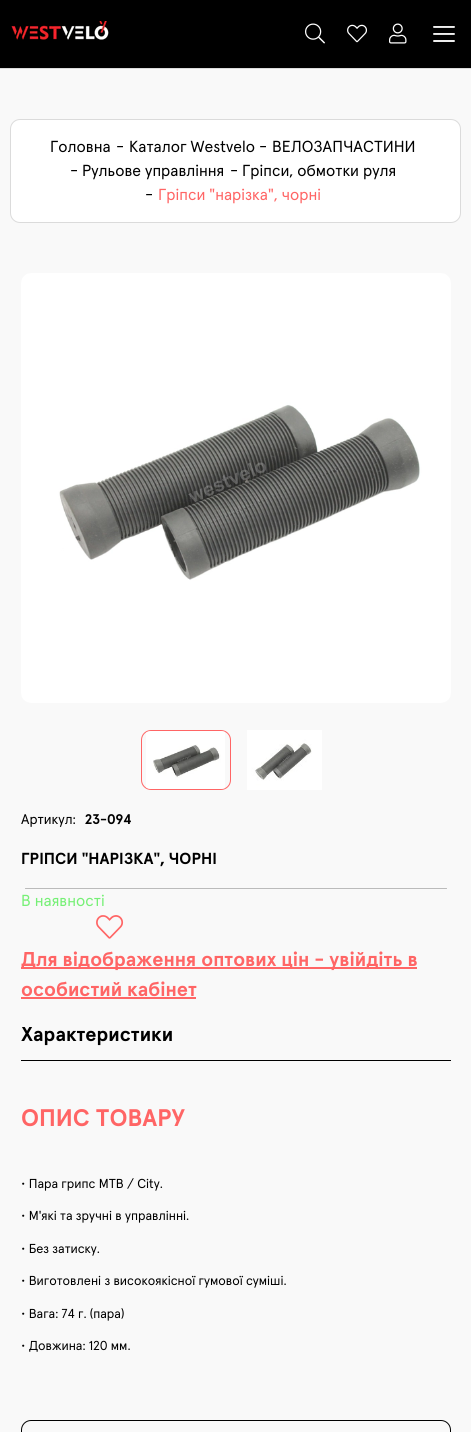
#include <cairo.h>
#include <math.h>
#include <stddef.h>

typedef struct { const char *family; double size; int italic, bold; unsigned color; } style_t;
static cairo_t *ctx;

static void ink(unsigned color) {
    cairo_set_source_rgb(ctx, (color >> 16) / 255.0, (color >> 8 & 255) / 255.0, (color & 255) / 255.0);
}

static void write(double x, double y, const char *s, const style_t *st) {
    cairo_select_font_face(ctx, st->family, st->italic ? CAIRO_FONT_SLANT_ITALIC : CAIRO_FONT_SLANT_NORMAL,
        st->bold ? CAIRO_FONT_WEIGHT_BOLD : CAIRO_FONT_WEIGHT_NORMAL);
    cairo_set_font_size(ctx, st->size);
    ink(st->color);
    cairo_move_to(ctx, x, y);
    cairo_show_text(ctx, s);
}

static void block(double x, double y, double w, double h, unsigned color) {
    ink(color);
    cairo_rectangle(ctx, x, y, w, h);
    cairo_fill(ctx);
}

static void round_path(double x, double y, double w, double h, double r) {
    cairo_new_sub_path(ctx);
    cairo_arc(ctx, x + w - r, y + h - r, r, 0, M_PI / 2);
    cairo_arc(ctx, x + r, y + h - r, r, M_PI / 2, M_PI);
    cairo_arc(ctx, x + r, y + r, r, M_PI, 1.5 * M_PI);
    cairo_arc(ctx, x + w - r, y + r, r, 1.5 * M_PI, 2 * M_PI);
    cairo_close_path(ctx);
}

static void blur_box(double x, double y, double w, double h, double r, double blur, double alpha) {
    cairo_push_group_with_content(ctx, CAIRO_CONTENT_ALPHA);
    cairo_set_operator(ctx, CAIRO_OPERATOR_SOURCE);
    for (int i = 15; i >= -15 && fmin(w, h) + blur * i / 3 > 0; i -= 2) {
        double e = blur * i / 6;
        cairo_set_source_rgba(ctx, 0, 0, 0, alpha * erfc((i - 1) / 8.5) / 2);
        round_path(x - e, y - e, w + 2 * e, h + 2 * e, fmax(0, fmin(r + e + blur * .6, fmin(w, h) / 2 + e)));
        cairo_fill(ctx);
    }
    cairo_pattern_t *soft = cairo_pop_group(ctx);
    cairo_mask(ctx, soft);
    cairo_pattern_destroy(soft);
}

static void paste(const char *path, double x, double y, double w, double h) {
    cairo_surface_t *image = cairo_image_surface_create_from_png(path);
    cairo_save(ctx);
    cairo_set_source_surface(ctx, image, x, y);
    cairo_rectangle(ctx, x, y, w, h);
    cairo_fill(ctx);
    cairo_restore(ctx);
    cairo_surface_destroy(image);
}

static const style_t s1 = {"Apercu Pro", 16, 0, 0, 0x000000};
static const style_t s2 = {"Apercu Pro", 17, 0, 0, 0x000000};
static const style_t s3 = {"Apercu Pro", 16, 0, 0, 0xff6565};
static const style_t s4 = {"Apercu Pro", 14, 0, 0, 0x000000};
static const style_t s5 = {"Apercu Pro", 14, 0, 1, 0x000000};
static const style_t s6 = {"Apercu Pro", 16, 0, 1, 0x000000};
static const style_t s7 = {"Apercu Pro", 16, 0, 0, 0x76f076};
static const style_t s8 = {"Apercu Pro", 20, 0, 1, 0xff6565};
static const style_t s9 = {"Apercu Pro", 20, 0, 1, 0x000000};
static const style_t s10 = {"Apercu Pro", 24, 0, 1, 0xff6565};
static const style_t s11 = {"Apercu Pro", 13, 0, 0, 0x000000};

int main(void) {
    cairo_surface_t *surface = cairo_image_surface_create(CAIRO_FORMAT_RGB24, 471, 1432);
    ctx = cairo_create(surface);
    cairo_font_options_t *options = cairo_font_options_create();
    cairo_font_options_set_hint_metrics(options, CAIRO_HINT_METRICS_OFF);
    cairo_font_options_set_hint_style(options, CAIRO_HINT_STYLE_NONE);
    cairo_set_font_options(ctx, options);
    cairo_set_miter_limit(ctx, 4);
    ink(0xf9f9f9);
    cairo_paint(ctx);
    block(0, 68, 471, 1, 0xdbdbdb);
    block(0, 0, 471, 68, 0x000000);
    paste("pic1.png", 11, 21, 98, 19);
    paste("pic2.png", 305, 23, 20, 21);
    paste("pic3.png", 347, 24, 20, 19);
    paste("pic4.png", 389, 23, 18, 21);
    paste("pic5.png", 433, 26, 22, 16);
    ink(0xffffff);
    round_path(10.5, 119.5, 450, 103, 9.5);
    cairo_fill_preserve(ctx);
    ink(0xdbdbdb);
    cairo_set_line_width(ctx, 1);
    cairo_stroke(ctx);
    write(50, 152, "Головна", &s1);
    write(116, 152, "-", &s2);
    write(129, 152, "Каталог Westvelo", &s1);
    write(259, 152, "-", &s2);
    write(272, 152, "ВЕЛОЗАПЧАСТИНИ", &s1);
    write(70, 176, "-", &s2);
    write(82, 176, "Рульове управління", &s1);
    write(230, 176, "-", &s2);
    write(242, 176, "Гріпси, обмотки руля", &s1);
    write(145, 200, "-", &s2);
    write(158, 200, "Гріпси \"нарізка\", чорні", &s3);
    paste("pic6.png", 21, 273, 430, 430);
    round_path(141.5, 730.5, 89, 59, 9.5);
    cairo_stroke(ctx);
    paste("pic7.png", 146, 731, 79, 58);
    paste("pic8.png", 247, 730, 75, 60);
    write(21, 824, "Артикул:", &s4);
    write(85, 824, "23-094", &s5);
    write(21, 864, "ГРІПСИ \"НАРІЗКА\", ЧОРНІ", &s6);
    cairo_save(ctx);
    cairo_rectangle(ctx, 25, 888, 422, 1);
    cairo_clip(ctx);
    ink(0x000000);
    blur_box(25, 889, 422, 123, 0, 0.5, 1);
    cairo_restore(ctx);
    write(21, 906, "В наявності", &s7);
    paste("pic9.png", 96, 915, 28, 24);
    block(21, 967, 396, 2, 0xff6565);
    write(21, 966, "Для відображення оптових цін - увійдіть в", &s8);
    write(21, 996, "особистий кабінет", &s8);
    block(21, 997, 175, 2, 0xff6565);
    block(21, 1060, 430, 1, 0x000000);
    write(21, 1041, "Характеристики", &s9);
    write(21, 1126, "ОПИС ТОВАРУ", &s10);
    write(21, 1188, "• Пара грипс MTB / City.", &s11);
    write(21, 1220, "• М'які та зручні в управлінні.", &s11);
    write(21, 1253, "• Без затиску.", &s11);
    write(21, 1285, "• Виготовлені з високоякісної гумової суміші.", &s11);
    write(21, 1318, "• Вага: 74 г. (пара)", &s11);
    write(21, 1350, "• Довжина: 120 мм.", &s11);
    round_path(21.5, 1420.5, 429, 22, 9.5);
    cairo_stroke(ctx);
    cairo_surface_write_to_png(surface, "screenshot.png");
    cairo_font_options_destroy(options);
    cairo_destroy(ctx);
    cairo_surface_destroy(surface);
    return 0;
}
